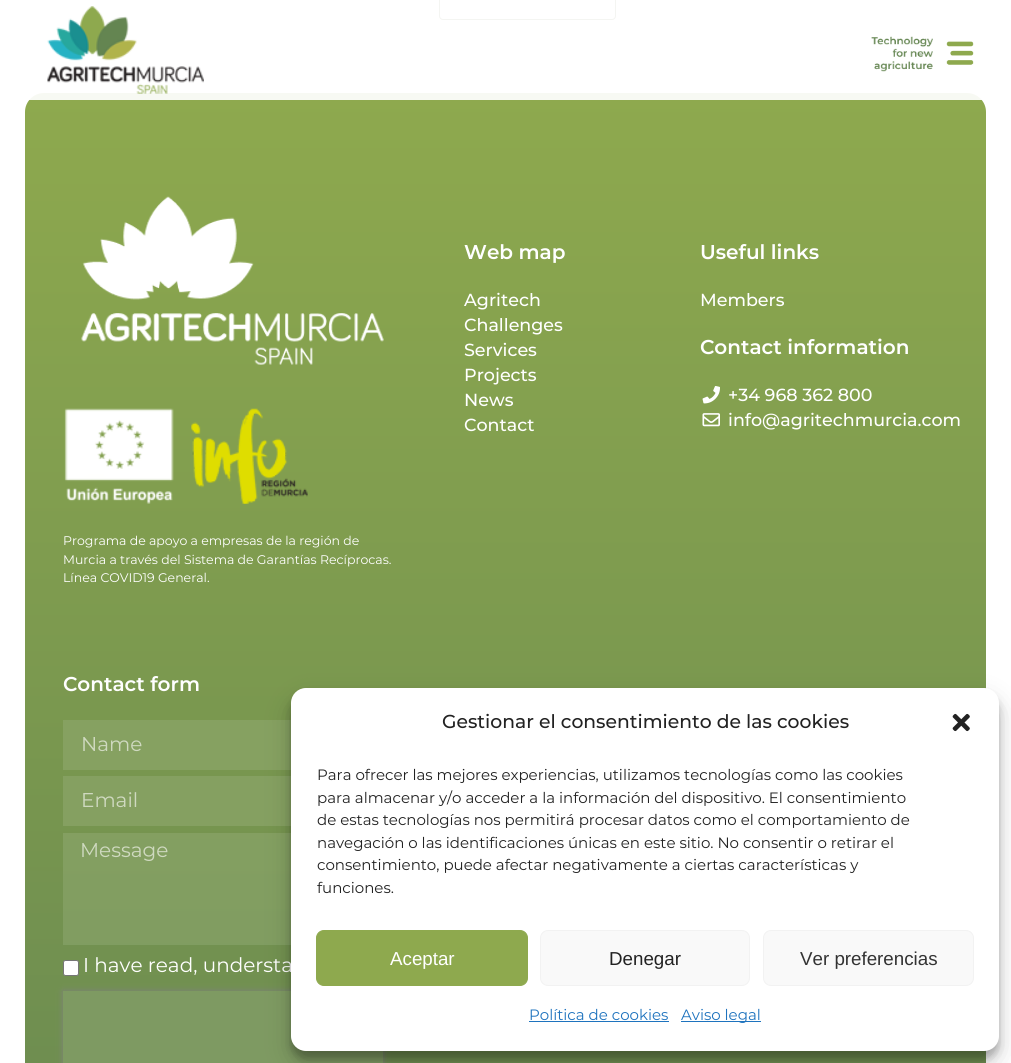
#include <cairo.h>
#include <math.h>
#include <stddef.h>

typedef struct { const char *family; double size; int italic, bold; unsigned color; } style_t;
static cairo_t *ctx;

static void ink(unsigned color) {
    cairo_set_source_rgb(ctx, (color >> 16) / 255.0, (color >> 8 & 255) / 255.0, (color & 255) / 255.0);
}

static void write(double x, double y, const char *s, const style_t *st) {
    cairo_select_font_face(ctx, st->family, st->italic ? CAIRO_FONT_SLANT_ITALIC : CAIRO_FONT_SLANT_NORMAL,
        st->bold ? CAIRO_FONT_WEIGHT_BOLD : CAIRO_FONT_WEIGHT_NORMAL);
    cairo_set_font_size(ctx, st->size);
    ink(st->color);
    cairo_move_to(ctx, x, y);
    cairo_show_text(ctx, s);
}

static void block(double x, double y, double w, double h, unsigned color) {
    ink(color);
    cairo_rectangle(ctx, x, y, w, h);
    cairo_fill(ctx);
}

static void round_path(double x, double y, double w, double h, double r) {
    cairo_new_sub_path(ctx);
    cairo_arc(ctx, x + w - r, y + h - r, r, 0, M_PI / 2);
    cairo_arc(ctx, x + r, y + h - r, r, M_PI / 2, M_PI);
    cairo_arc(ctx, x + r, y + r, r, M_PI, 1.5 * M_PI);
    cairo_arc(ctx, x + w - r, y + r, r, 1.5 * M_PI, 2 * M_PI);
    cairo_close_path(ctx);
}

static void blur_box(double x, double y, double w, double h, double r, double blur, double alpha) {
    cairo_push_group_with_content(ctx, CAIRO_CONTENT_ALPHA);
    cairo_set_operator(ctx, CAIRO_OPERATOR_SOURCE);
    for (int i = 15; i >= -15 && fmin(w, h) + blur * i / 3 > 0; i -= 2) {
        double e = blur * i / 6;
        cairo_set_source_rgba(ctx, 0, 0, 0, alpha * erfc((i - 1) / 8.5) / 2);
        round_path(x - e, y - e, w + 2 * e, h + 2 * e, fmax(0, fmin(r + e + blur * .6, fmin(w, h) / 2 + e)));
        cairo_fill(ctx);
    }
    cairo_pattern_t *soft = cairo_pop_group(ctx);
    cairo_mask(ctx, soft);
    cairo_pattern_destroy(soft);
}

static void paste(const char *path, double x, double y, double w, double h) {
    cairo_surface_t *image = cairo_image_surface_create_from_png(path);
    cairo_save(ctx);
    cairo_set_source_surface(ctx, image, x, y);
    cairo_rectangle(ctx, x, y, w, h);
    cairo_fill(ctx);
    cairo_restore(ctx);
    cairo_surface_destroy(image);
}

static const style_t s1 = {"Montserrat SemiBold", 20, 0, 0, 0xffffff};
static const style_t s2 = {"Montserrat Medium", 17.5, 0, 0, 0xffffff};
static const style_t s3 = {"Montserrat", 12.5, 0, 0, 0xffffff};
static const style_t s4 = {"Montserrat", 20, 0, 0, 0xcfd9c0};
static const style_t s5 = {"Montserrat", 20, 0, 0, 0xffffff};
static const style_t s6 = {"Montserrat Medium", 18.75, 0, 0, 0x222222};
static const style_t s7 = {"Montserrat", 15, 0, 0, 0x222222};
static const style_t s8 = {"Liberation Sans", 18.75, 0, 0, 0xffffff};
static const style_t s9 = {"Liberation Sans", 18.75, 0, 0, 0x222222};
static const style_t s10 = {"Liberation Sans", 18.75, 0, 0, 0x333333};
static const style_t s11 = {"Montserrat", 15, 0, 0, 0x1e73be};

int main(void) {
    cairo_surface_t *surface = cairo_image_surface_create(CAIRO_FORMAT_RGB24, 1011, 1063);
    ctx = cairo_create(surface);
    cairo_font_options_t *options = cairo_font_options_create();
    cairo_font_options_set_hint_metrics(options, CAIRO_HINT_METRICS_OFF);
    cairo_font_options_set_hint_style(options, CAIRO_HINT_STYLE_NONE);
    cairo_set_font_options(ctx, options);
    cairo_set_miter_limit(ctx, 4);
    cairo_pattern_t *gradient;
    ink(0xffffff);
    cairo_paint(ctx);
    round_path(439.5, -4.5, 176, 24, 3.5);
    ink(0x566335);
    cairo_set_line_width(ctx, 1);
    cairo_stroke(ctx);
    gradient = cairo_pattern_create_linear(506, 92, 506, 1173);
    cairo_pattern_add_color_stop_rgba(gradient, 0, 0.557, 0.663, 0.306, 1);
    cairo_pattern_add_color_stop_rgba(gradient, 1, 0.42, 0.545, 0.314, 1);
    cairo_set_source(ctx, gradient);
    cairo_pattern_destroy(gradient);
    cairo_new_path(ctx);
    cairo_move_to(ctx, 44, 93);
    cairo_line_to(ctx, 967, 93);
    cairo_curve_to(ctx, 977.5, 93, 986, 101.5, 986, 112);
    cairo_line_to(ctx, 986, 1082);
    cairo_line_to(ctx, 25, 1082);
    cairo_line_to(ctx, 25, 112);
    cairo_curve_to(ctx, 25, 101.5, 33.5, 93, 44, 93);
    cairo_close_path(ctx);
    cairo_fill(ctx);
    cairo_set_source_rgba(ctx, 1, 1, 1, 0.93);
    cairo_rectangle(ctx, 29, 0, 953, 100);
    cairo_fill(ctx);
    paste("pic1.png", 47, 6, 157, 88);
    paste("pic2.png", 871, 36, 62, 36);
    paste("pic3.png", 946, 41, 28, 24);
    gradient = cairo_pattern_create_linear(506, 92, 506, 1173);
    cairo_pattern_add_color_stop_rgba(gradient, 0, 0.6, 0.698, 0.376, 1);
    cairo_pattern_add_color_stop_rgba(gradient, 1, 0.478, 0.592, 0.384, 1);
    cairo_set_source(ctx, gradient);
    cairo_pattern_destroy(gradient);
    cairo_rectangle(ctx, 63, 833, 228, 112);
    cairo_fill(ctx);
    write(464, 259, "Web map", &s1);
    write(464, 306, "Agritech", &s2);
    write(464, 331, "Challenges", &s2);
    write(464, 356, "Services", &s2);
    write(464, 381, "Projects", &s2);
    write(464, 406, "News", &s2);
    write(464, 431, "Contact", &s2);
    write(700, 259, "Useful links", &s1);
    write(700, 306, "Members", &s2);
    write(700, 354, "Contact information", &s1);
    paste("pic4.png", 702, 386, 18, 18);
    write(728, 401, "+34 968 362 800", &s2);
    paste("pic5.png", 702, 413, 18, 14);
    write(728, 426, "info@agritechmurcia.com", &s2);
    paste("pic6.png", 81, 196, 303, 169);
    paste("pic7.png", 64, 408, 244, 96);
    write(63, 545, "Programa de apoyo a empresas de la región de", &s3);
    write(63, 564, "Murcia a través del Sistema de Garantías Recíprocas.", &s3);
    write(63, 582, "Línea COVID19 General.", &s3);
    write(63, 691, "Contact form", &s1);
    block(63, 720, 228, 50, 0x86a161);
    write(81, 751, "Name", &s4);
    block(63, 776, 228, 50, 0x85a061);
    write(81, 807, "Email", &s4);
    write(80, 857, "Message", &s4);
    ink(0xffffff);
    round_path(63.5, 960.5, 15, 15, 2);
    cairo_fill_preserve(ctx);
    ink(0x767676);
    cairo_stroke(ctx);
    write(83, 972, "I have read, understa", &s5);
    block(63, 991, 320, 72, 0x7e9a62);
    cairo_save(ctx);
    cairo_set_fill_rule(ctx, CAIRO_FILL_RULE_EVEN_ODD);
    cairo_new_path(ctx);
    cairo_move_to(ctx, 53, 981);
    cairo_line_to(ctx, 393, 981);
    cairo_line_to(ctx, 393, 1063);
    cairo_line_to(ctx, 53, 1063);
    cairo_close_path(ctx);
    cairo_move_to(ctx, 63, 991);
    cairo_line_to(ctx, 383, 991);
    cairo_line_to(ctx, 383, 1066);
    cairo_line_to(ctx, 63, 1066);
    cairo_close_path(ctx);
    cairo_clip(ctx);
    ink(0x808080);
    blur_box(63, 991, 320, 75, 0, 3, 1);
    cairo_restore(ctx);
    ink(0x000000);
    blur_box(291, 695, 708, 364, 15, 4, 0.23);
    blur_box(291, 700, 708, 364, 15, 12.5, 0.19);
    ink(0xffffff);
    round_path(291, 688, 708, 363, 15);
    cairo_fill(ctx);
    write(442, 728, "Gestionar el consentimiento de las cookies", &s6);
    paste("pic8.png", 952, 713, 18, 19);
    write(317, 780, "Para ofrecer las mejores experiencias, utilizamos tecnologías como las cookies", &s7);
    write(317, 803, "para almacenar y/o acceder a la información del dispositivo. El consentimiento", &s7);
    write(317, 825, "de estas tecnologías nos permitirá procesar datos como el comportamiento de", &s7);
    write(317, 848, "navegación o las identificaciones únicas en este sitio. No consentir o retirar el", &s7);
    write(317, 870, "consentimiento, puede afectar negativamente a ciertas características y", &s7);
    write(317, 893, "funciones.", &s7);
    ink(0x8ea94e);
    round_path(316.5, 930.5, 211, 55, 7.5);
    cairo_fill_preserve(ctx);
    cairo_stroke(ctx);
    write(390, 965, "Aceptar", &s8);
    ink(0xf9f9f9);
    round_path(540.5, 930.5, 209, 55, 7.5);
    cairo_fill_preserve(ctx);
    ink(0xf2f2f2);
    cairo_stroke(ctx);
    write(609, 965, "Denegar", &s9);
    ink(0xf9f9f9);
    round_path(763.5, 930.5, 210, 55, 7.5);
    cairo_fill_preserve(ctx);
    ink(0xf2f2f2);
    cairo_stroke(ctx);
    write(800, 965, "Ver preferencias", &s10);
    write(529, 1020, "Política de cookies", &s11);
    block(529, 1021, 140, 1, 0x1e73be);
    block(681, 1021, 80, 1, 0x1e73be);
    write(681, 1020, "Aviso legal", &s11);
    cairo_surface_write_to_png(surface, "screenshot.png");
    cairo_font_options_destroy(options);
    cairo_destroy(ctx);
    cairo_surface_destroy(surface);
    return 0;
}
